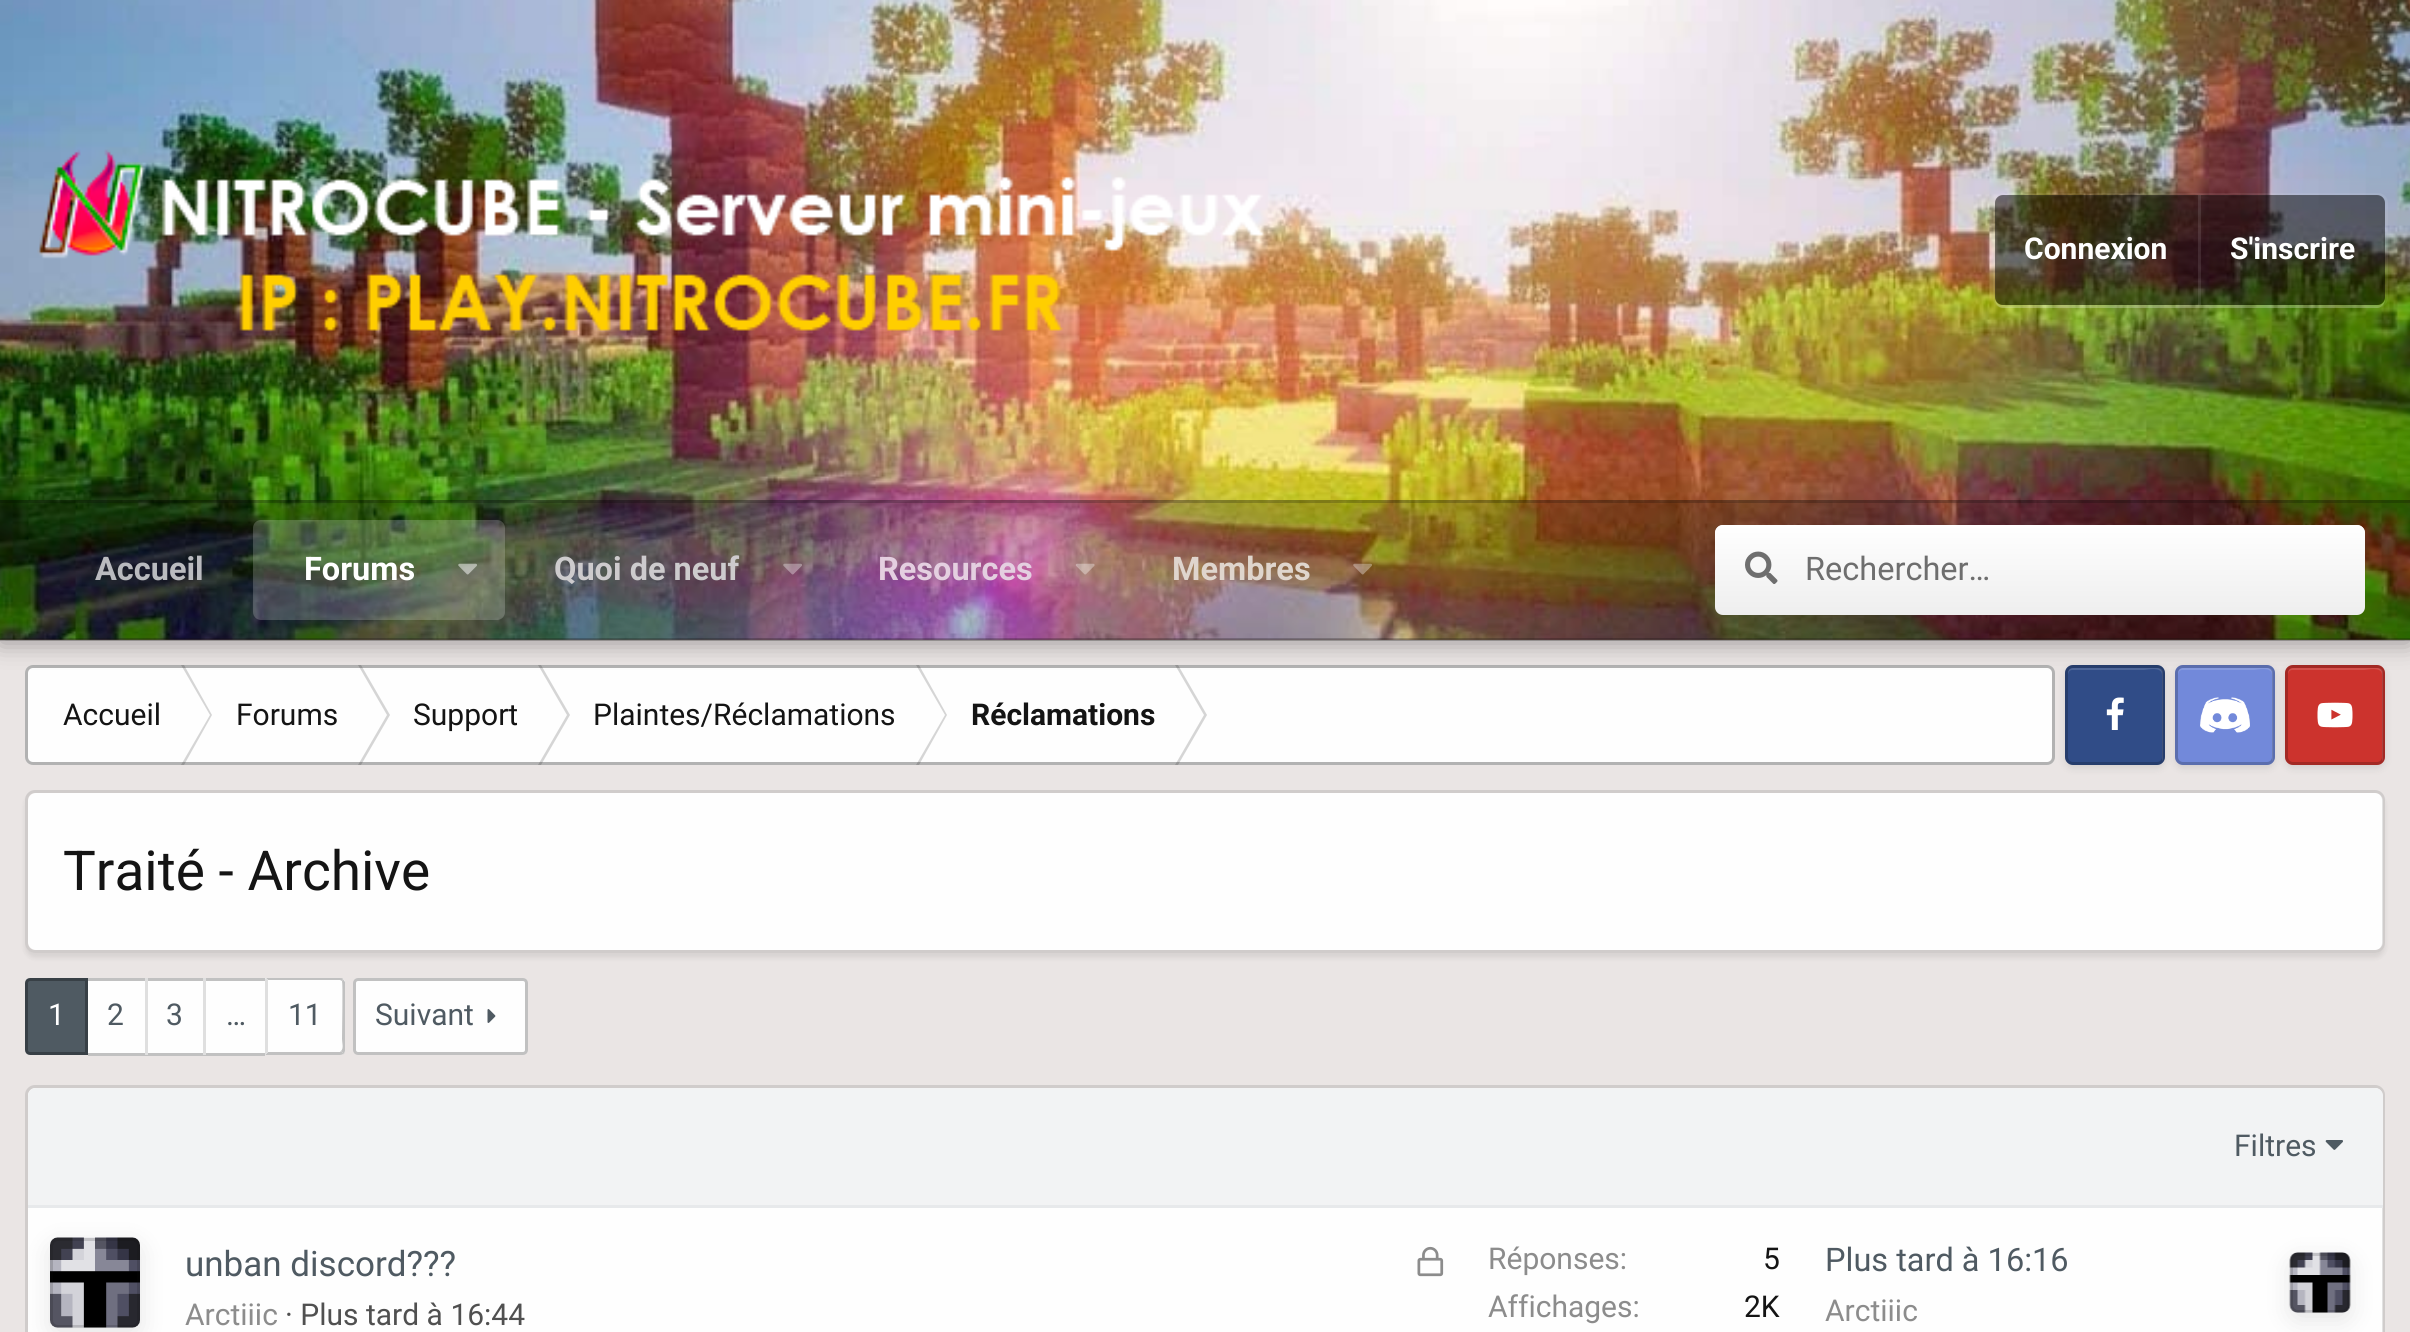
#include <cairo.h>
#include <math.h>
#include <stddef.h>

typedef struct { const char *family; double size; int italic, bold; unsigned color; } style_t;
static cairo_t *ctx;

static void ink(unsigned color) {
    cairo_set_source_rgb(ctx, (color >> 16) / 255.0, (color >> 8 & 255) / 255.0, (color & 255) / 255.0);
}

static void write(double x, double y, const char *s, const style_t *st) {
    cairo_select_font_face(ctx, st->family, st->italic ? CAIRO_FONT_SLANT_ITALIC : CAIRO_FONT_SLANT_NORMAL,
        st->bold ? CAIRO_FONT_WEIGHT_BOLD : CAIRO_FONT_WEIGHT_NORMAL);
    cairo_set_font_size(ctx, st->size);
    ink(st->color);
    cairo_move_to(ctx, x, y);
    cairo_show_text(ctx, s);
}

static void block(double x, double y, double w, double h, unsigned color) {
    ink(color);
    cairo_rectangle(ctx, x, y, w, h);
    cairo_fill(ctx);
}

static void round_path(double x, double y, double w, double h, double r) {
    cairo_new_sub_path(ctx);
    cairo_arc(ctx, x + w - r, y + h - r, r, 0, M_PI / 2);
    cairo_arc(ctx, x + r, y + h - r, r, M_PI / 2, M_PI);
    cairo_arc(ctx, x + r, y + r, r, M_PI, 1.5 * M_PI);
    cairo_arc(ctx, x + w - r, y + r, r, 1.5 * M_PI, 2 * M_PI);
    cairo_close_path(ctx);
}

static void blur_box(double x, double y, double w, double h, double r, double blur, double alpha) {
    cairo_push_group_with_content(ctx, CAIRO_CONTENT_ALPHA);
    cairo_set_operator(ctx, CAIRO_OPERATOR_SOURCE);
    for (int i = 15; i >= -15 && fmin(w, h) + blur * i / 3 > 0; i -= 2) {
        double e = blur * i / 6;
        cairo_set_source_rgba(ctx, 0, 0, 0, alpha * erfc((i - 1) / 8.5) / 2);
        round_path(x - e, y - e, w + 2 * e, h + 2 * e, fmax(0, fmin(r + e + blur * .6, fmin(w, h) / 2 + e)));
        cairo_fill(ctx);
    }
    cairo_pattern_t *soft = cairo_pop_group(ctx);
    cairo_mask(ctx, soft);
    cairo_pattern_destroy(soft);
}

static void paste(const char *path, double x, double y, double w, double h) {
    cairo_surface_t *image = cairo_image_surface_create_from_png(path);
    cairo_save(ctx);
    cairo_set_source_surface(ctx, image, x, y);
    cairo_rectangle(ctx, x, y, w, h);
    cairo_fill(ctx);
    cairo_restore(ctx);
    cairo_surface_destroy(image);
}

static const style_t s1 = {"Roboto", 30, 0, 1, 0xffffff};
static const style_t s2 = {"Roboto", 32.5, 0, 1, 0xbabbbf};
static const style_t s3 = {"Roboto", 32.5, 0, 1, 0xffffff};
static const style_t s4 = {"Roboto", 32.5, 0, 1, 0xcdcbcd};
static const style_t s5 = {"Roboto", 32.5, 0, 1, 0xe4cfe0};
static const style_t s6 = {"Roboto", 32.5, 0, 1, 0xdfd5cd};
static const style_t s7 = {"Roboto", 32.5, 0, 0, 0x6e6e6e};
static const style_t s8 = {"Roboto", 30, 0, 0, 0x141414};
static const style_t s9 = {"Roboto", 30, 0, 1, 0x141414};
static const style_t s10 = {"Roboto", 55, 0, 0, 0x141414};
static const style_t s11 = {"Roboto", 30, 0, 0, 0xffffff};
static const style_t s12 = {"Roboto", 30, 0, 0, 0x4f5a62};
static const style_t s13 = {"Roboto", 35, 0, 0, 0x4f5a62};
static const style_t s14 = {"Roboto", 30, 0, 0, 0x8c8c8c};
static const style_t s15 = {"Roboto", 30, 0, 0, 0x505050};
static const style_t s16 = {"Roboto", 32.5, 0, 0, 0x4f5a62};

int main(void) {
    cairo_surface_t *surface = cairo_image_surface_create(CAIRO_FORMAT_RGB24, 2410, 1332);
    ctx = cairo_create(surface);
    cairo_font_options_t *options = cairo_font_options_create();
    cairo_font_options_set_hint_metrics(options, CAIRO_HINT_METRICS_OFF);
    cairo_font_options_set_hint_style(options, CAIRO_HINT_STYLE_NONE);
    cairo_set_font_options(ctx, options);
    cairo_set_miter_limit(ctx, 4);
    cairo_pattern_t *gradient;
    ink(0xeae5e4);
    cairo_paint(ctx);
    ink(0xfefefe);
    round_path(25, 665, 2030, 100, 8);
    cairo_fill(ctx);
    ink(0xd5d5d5);
    cairo_new_path(ctx);
    cairo_move_to(ctx, 181, 665);
    cairo_line_to(ctx, 184, 665);
    cairo_line_to(ctx, 212, 715);
    cairo_line_to(ctx, 210, 715);
    cairo_close_path(ctx);
    cairo_fill(ctx);
    cairo_new_path(ctx);
    cairo_move_to(ctx, 210, 715);
    cairo_line_to(ctx, 212, 715);
    cairo_line_to(ctx, 184, 765);
    cairo_line_to(ctx, 181, 765);
    cairo_close_path(ctx);
    cairo_fill(ctx);
    cairo_new_path(ctx);
    cairo_move_to(ctx, 358, 665);
    cairo_line_to(ctx, 361, 665);
    cairo_line_to(ctx, 390, 715);
    cairo_line_to(ctx, 387, 715);
    cairo_close_path(ctx);
    cairo_fill(ctx);
    cairo_new_path(ctx);
    cairo_move_to(ctx, 387, 715);
    cairo_line_to(ctx, 390, 715);
    cairo_line_to(ctx, 361, 765);
    cairo_line_to(ctx, 358, 765);
    cairo_close_path(ctx);
    cairo_fill(ctx);
    cairo_new_path(ctx);
    cairo_move_to(ctx, 538, 665);
    cairo_line_to(ctx, 541, 665);
    cairo_line_to(ctx, 570, 715);
    cairo_line_to(ctx, 567, 715);
    cairo_close_path(ctx);
    cairo_fill(ctx);
    cairo_new_path(ctx);
    cairo_move_to(ctx, 567, 715);
    cairo_line_to(ctx, 570, 715);
    cairo_line_to(ctx, 541, 765);
    cairo_line_to(ctx, 538, 765);
    cairo_close_path(ctx);
    cairo_fill(ctx);
    cairo_new_path(ctx);
    cairo_move_to(ctx, 916, 665);
    cairo_line_to(ctx, 919, 665);
    cairo_line_to(ctx, 947, 715);
    cairo_line_to(ctx, 945, 715);
    cairo_close_path(ctx);
    cairo_fill(ctx);
    cairo_new_path(ctx);
    cairo_move_to(ctx, 945, 715);
    cairo_line_to(ctx, 947, 715);
    cairo_line_to(ctx, 919, 765);
    cairo_line_to(ctx, 916, 765);
    cairo_close_path(ctx);
    cairo_fill(ctx);
    cairo_new_path(ctx);
    cairo_move_to(ctx, 1175, 665);
    cairo_line_to(ctx, 1178, 665);
    cairo_line_to(ctx, 1207, 715);
    cairo_line_to(ctx, 1204, 715);
    cairo_close_path(ctx);
    cairo_fill(ctx);
    cairo_new_path(ctx);
    cairo_move_to(ctx, 1204, 715);
    cairo_line_to(ctx, 1207, 715);
    cairo_line_to(ctx, 1178, 765);
    cairo_line_to(ctx, 1175, 765);
    cairo_close_path(ctx);
    cairo_fill(ctx);
    round_path(26.5, 666.5, 2027, 97, 6.5);
    cairo_set_source_rgba(ctx, 0, 0, 0, 0.3);
    cairo_set_line_width(ctx, 3);
    cairo_stroke(ctx);
    ink(0x000000);
    blur_box(2065, 668, 100, 100, 8, 4, 0.1);
    ink(0x304c87);
    round_path(2065, 665, 100, 100, 8);
    cairo_fill(ctx);
    paste("pic8.png", 2106, 697, 18, 33);
    ink(0x4f6799);
    cairo_new_path(ctx);
    cairo_move_to(ctx, 2072, 670);
    cairo_line_to(ctx, 2144, 670);
    cairo_curve_to(ctx, 2147, 670, 2162, 666, 2162, 675);
    cairo_line_to(ctx, 2162, 761);
    cairo_curve_to(ctx, 2163, 760, 2163, 759, 2163, 758);
    cairo_line_to(ctx, 2163, 673);
    cairo_curve_to(ctx, 2163, 670, 2161, 668, 2158, 668);
    cairo_line_to(ctx, 2073, 668);
    cairo_curve_to(ctx, 2070, 668, 2068, 670, 2068, 673);
    cairo_line_to(ctx, 2068, 675);
    cairo_curve_to(ctx, 2068, 672, 2070, 670, 2072, 670);
    cairo_close_path(ctx);
    cairo_fill(ctx);
    round_path(2066.5, 666.5, 97, 97, 6.5);
    cairo_set_source_rgba(ctx, 0, 0, 0, 0.2);
    cairo_stroke(ctx);
    ink(0x000000);
    blur_box(2175, 668, 100, 100, 8, 4, 0.1);
    ink(0x7289da);
    round_path(2175, 665, 100, 100, 8);
    cairo_fill(ctx);
    paste("pic9.png", 2200, 697, 50, 36);
    ink(0x879be0);
    cairo_new_path(ctx);
    cairo_move_to(ctx, 2182, 670);
    cairo_line_to(ctx, 2254, 670);
    cairo_curve_to(ctx, 2257, 670, 2272, 666, 2272, 675);
    cairo_line_to(ctx, 2272, 761);
    cairo_curve_to(ctx, 2273, 760, 2273, 759, 2273, 758);
    cairo_line_to(ctx, 2273, 673);
    cairo_curve_to(ctx, 2273, 670, 2271, 668, 2268, 668);
    cairo_line_to(ctx, 2183, 668);
    cairo_curve_to(ctx, 2180, 668, 2178, 670, 2178, 673);
    cairo_line_to(ctx, 2178, 675);
    cairo_curve_to(ctx, 2178, 672, 2180, 670, 2182, 670);
    cairo_close_path(ctx);
    cairo_fill(ctx);
    round_path(2176.5, 666.5, 97, 97, 6.5);
    cairo_set_source_rgba(ctx, 0, 0, 0, 0.2);
    cairo_stroke(ctx);
    ink(0x000000);
    blur_box(2285, 668, 100, 100, 8, 4, 0.1);
    ink(0xcc332d);
    round_path(2285, 665, 100, 100, 8);
    cairo_fill(ctx);
    paste("pic10.png", 2317, 702, 36, 26);
    ink(0xd4524d);
    cairo_new_path(ctx);
    cairo_move_to(ctx, 2292, 670);
    cairo_line_to(ctx, 2364, 670);
    cairo_curve_to(ctx, 2367, 670, 2382, 666, 2382, 675);
    cairo_line_to(ctx, 2382, 761);
    cairo_curve_to(ctx, 2383, 760, 2383, 759, 2383, 758);
    cairo_line_to(ctx, 2383, 673);
    cairo_curve_to(ctx, 2383, 670, 2381, 668, 2378, 668);
    cairo_line_to(ctx, 2293, 668);
    cairo_curve_to(ctx, 2290, 668, 2288, 670, 2288, 673);
    cairo_line_to(ctx, 2288, 675);
    cairo_curve_to(ctx, 2288, 672, 2290, 670, 2292, 670);
    cairo_close_path(ctx);
    cairo_fill(ctx);
    round_path(2286.5, 666.5, 97, 97, 6.5);
    cairo_set_source_rgba(ctx, 0, 0, 0, 0.2);
    cairo_stroke(ctx);
    ink(0x000000);
    blur_box(0, 3, 2410, 640, 0, 12.5, 0.35);
    block(0, 638, 2410, 2, 0x8b6e6a);
    paste("pic1.png", 0, 0, 2410, 640);
    paste("pic2.png", 37, 149, 1227, 182);
    round_path(1994.5, 194.5, 392, 112, 8.5);
    cairo_set_source_rgba(ctx, 1, 1, 1, 0.07);
    cairo_stroke(ctx);
    cairo_set_source_rgba(ctx, 1, 1, 1, 0.2);
    cairo_new_path(ctx);
    cairo_move_to(ctx, 1995, 298);
    cairo_line_to(ctx, 1995, 300);
    cairo_curve_to(ctx, 1995, 304, 1999, 308, 2003, 308);
    cairo_line_to(ctx, 2377, 308);
    cairo_curve_to(ctx, 2381, 308, 2385, 304, 2385, 300);
    cairo_line_to(ctx, 2385, 298);
    cairo_curve_to(ctx, 2385, 302, 2382, 305, 2378, 305);
    cairo_line_to(ctx, 2002, 305);
    cairo_curve_to(ctx, 1998, 305, 1995, 302, 1995, 298);
    cairo_close_path(ctx);
    cairo_fill(ctx);
    cairo_set_source_rgba(ctx, 0, 0, 0, 0.5);
    round_path(1995, 195, 390, 110, 8);
    cairo_fill(ctx);
    write(2024, 259, "Connexion", &s1);
    cairo_set_source_rgba(ctx, 1, 1, 1, 0.1);
    cairo_rectangle(ctx, 2198, 195, 3, 110);
    cairo_fill(ctx);
    write(2230, 259, "S'inscrire", &s1);
    cairo_set_source_rgba(ctx, 0, 0, 0, 0.2);
    cairo_rectangle(ctx, 0, 500, 2410, 140);
    cairo_fill(ctx);
    cairo_rectangle(ctx, 0, 500, 2410, 3);
    cairo_fill(ctx);
    cairo_rectangle(ctx, 0, 638, 2410, 3);
    cairo_fill(ctx);
    write(95, 580, "Accueil", &s2);
    cairo_set_source_rgba(ctx, 1, 1, 1, 0.2);
    round_path(253, 520, 252, 100, 8);
    cairo_fill(ctx);
    write(304, 580, "Forums", &s3);
    paste("pic3.png", 458, 563, 19, 12);
    write(554, 580, "Quoi de neuf", &s4);
    paste("pic4.png", 783, 563, 19, 12);
    write(878, 580, "Resources", &s5);
    paste("pic5.png", 1075, 563, 20, 12);
    write(1172, 580, "Membres", &s6);
    paste("pic6.png", 1353, 563, 19, 12);
    ink(0xeeeeee);
    round_path(1715, 525, 650, 90, 8);
    cairo_fill(ctx);
    gradient = cairo_pattern_create_linear(2040, 525, 2040, 615);
    cairo_pattern_add_color_stop_rgba(gradient, 0, 1, 1, 1, 1);
    cairo_pattern_add_color_stop_rgba(gradient, 1, 1, 1, 1, 0);
    cairo_set_source(ctx, gradient);
    cairo_pattern_destroy(gradient);
    round_path(1715, 525, 650, 90, 8);
    cairo_fill(ctx);
    paste("pic7.png", 1745, 551, 33, 33);
    write(1805, 580, "Rechercher…", &s7);
    write(63, 725, "Accueil", &s8);
    write(236, 725, "Forums", &s8);
    write(413, 725, "Support", &s8);
    write(593, 725, "Plaintes/Réclamations", &s8);
    write(971, 725, "Réclamations", &s9);
    cairo_save(ctx);
    cairo_set_fill_rule(ctx, CAIRO_FILL_RULE_EVEN_ODD);
    cairo_new_path(ctx);
    cairo_move_to(ctx, 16, 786);
    cairo_line_to(ctx, 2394, 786);
    cairo_line_to(ctx, 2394, 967);
    cairo_line_to(ctx, 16, 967);
    cairo_close_path(ctx);
    cairo_move_to(ctx, 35, 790);
    cairo_line_to(ctx, 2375, 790);
    cairo_curve_to(ctx, 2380.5, 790, 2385, 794.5, 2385, 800);
    cairo_line_to(ctx, 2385, 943);
    cairo_curve_to(ctx, 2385, 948.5, 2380.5, 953, 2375, 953);
    cairo_line_to(ctx, 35, 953);
    cairo_curve_to(ctx, 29.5, 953, 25, 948.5, 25, 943);
    cairo_line_to(ctx, 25, 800);
    cairo_curve_to(ctx, 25, 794.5, 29.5, 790, 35, 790);
    cairo_close_path(ctx);
    cairo_clip(ctx);
    ink(0x000000);
    blur_box(25, 795, 2360, 163, 10, 2.5, 0.08);
    cairo_restore(ctx);
    ink(0xfefefe);
    round_path(28, 793, 2355, 157, 8);
    cairo_fill(ctx);
    round_path(26.5, 791.5, 2357, 160, 8.5);
    cairo_set_source_rgba(ctx, 0, 0, 0, 0.11);
    cairo_stroke(ctx);
    write(63, 890, "Traité - Archive", &s10);
    ink(0x4f5a62);
    cairo_new_path(ctx);
    cairo_move_to(ctx, 30, 979.5);
    cairo_line_to(ctx, 86.5, 979.5);
    cairo_line_to(ctx, 86.5, 1053.5);
    cairo_line_to(ctx, 30, 1053.5);
    cairo_curve_to(ctx, 28, 1053.5, 26.5, 1052, 26.5, 1050);
    cairo_line_to(ctx, 26.5, 983);
    cairo_curve_to(ctx, 26.5, 981, 28, 979.5, 30, 979.5);
    cairo_close_path(ctx);
    cairo_fill_preserve(ctx);
    ink(0x384046);
    cairo_stroke(ctx);
    write(48, 1025, "1", &s11);
    block(88, 981, 57, 72, 0xfefefe);
    block(88, 978, 177, 3, 0xc1c1c1);
    block(88, 1053, 177, 3, 0xc1c1c1);
    write(107, 1025, "2", &s12);
    block(148, 981, 55, 72, 0xfefefe);
    block(145, 978, 3, 77, 0xdfdfdf);
    write(166, 1025, "3", &s12);
    block(206, 981, 59, 72, 0xfefefe);
    block(203, 978, 3, 77, 0xdfdfdf);
    write(226, 1025, "…", &s12);
    ink(0xfefefe);
    cairo_new_path(ctx);
    cairo_move_to(ctx, 265, 978);
    cairo_line_to(ctx, 340, 978);
    cairo_curve_to(ctx, 343, 978, 345, 980, 345, 983);
    cairo_line_to(ctx, 345, 1050);
    cairo_curve_to(ctx, 345, 1053, 343, 1055, 340, 1055);
    cairo_line_to(ctx, 265, 1055);
    cairo_close_path(ctx);
    cairo_fill(ctx);
    ink(0xc1c1c1);
    cairo_new_path(ctx);
    cairo_move_to(ctx, 268, 980);
    cairo_line_to(ctx, 340, 980);
    cairo_line_to(ctx, 342, 981);
    cairo_line_to(ctx, 343, 979);
    cairo_curve_to(ctx, 343, 978, 341, 978, 340, 978);
    cairo_line_to(ctx, 266, 978);
    cairo_close_path(ctx);
    cairo_fill(ctx);
    cairo_new_path(ctx);
    cairo_move_to(ctx, 343, 979);
    cairo_line_to(ctx, 345, 982);
    cairo_line_to(ctx, 345, 1051);
    cairo_line_to(ctx, 344, 1054);
    cairo_line_to(ctx, 341, 1051);
    cairo_curve_to(ctx, 344, 1048, 342, 1043, 342, 1039);
    cairo_curve_to(ctx, 342, 1032, 343, 983, 342, 981);
    cairo_close_path(ctx);
    cairo_fill(ctx);
    cairo_new_path(ctx);
    cairo_move_to(ctx, 340, 1055);
    cairo_curve_to(ctx, 342, 1055, 343, 1054, 344, 1054);
    cairo_line_to(ctx, 341, 1051);
    cairo_line_to(ctx, 340, 1052);
    cairo_line_to(ctx, 268, 1052);
    cairo_line_to(ctx, 265, 1055);
    cairo_close_path(ctx);
    cairo_fill(ctx);
    ink(0xdfdfdf);
    cairo_new_path(ctx);
    cairo_move_to(ctx, 265, 1055);
    cairo_line_to(ctx, 268, 1052);
    cairo_line_to(ctx, 268, 980);
    cairo_line_to(ctx, 265, 978);
    cairo_close_path(ctx);
    cairo_fill(ctx);
    write(288, 1025, "11", &s12);
    ink(0xfefefe);
    round_path(354.5, 979.5, 172, 74, 3.5);
    cairo_fill_preserve(ctx);
    ink(0xc1c1c1);
    cairo_stroke(ctx);
    write(375, 1025, "Suivant", &s12);
    paste("pic11.png", 487, 1009, 9, 14);
    ink(0xfefefe);
    round_path(28, 1088, 2355, 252, 8);
    cairo_fill(ctx);
    round_path(26.5, 1086.5, 2357, 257, 8.5);
    cairo_set_source_rgba(ctx, 0, 0, 0, 0.11);
    cairo_stroke(ctx);
    ink(0xf2f3f4);
    cairo_new_path(ctx);
    cairo_move_to(ctx, 36, 1088);
    cairo_line_to(ctx, 2375, 1088);
    cairo_curve_to(ctx, 2379.5, 1088, 2383, 1091.5, 2383, 1096);
    cairo_line_to(ctx, 2383, 1208);
    cairo_line_to(ctx, 28, 1208);
    cairo_line_to(ctx, 28, 1096);
    cairo_curve_to(ctx, 28, 1091.5, 31.5, 1088, 36, 1088);
    cairo_close_path(ctx);
    cairo_fill(ctx);
    block(28, 1205, 2355, 3, 0xe7e9eb);
    write(2234, 1156, "Filtres", &s12);
    paste("pic12.png", 2325, 1140, 18, 10);
    ink(0x000000);
    blur_box(50, 1245, 90, 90, 8, 12.5, 0.1);
    ink(0xfefefe);
    round_path(50, 1238, 90, 90, 8);
    cairo_fill(ctx);
    paste("pic13.png", 50, 1237, 90, 91);
    round_path(51.5, 1239.5, 87, 87, 6.5);
    cairo_set_source_rgba(ctx, 0.078, 0.078, 0.078, 0.15);
    cairo_stroke(ctx);
    write(185, 1276, "unban discord?\077?", &s13);
    paste("pic14.png", 1417, 1246, 27, 31);
    write(185, 1325, "Arctiiic", &s14);
    write(285, 1325, "· Plus tard à 16:44", &s15);
    write(1488, 1269, "Réponses:", &s14);
    write(1763, 1269, "5", &s8);
    write(1488, 1317, "Affichages:", &s14);
    write(1744, 1317, "2K", &s8);
    write(1825, 1271, "Plus tard à 16:16", &s16);
    write(1825, 1321, "Arctiiic", &s14);
    ink(0x000000);
    blur_box(2290, 1260, 60, 60, 8, 12.5, 0.1);
    ink(0xfefefe);
    round_path(2290, 1253, 60, 60, 8);
    cairo_fill(ctx);
    paste("pic15.png", 2289, 1252, 62, 61);
    round_path(2291.5, 1254.5, 57, 57, 6.5);
    cairo_set_source_rgba(ctx, 0.078, 0.078, 0.078, 0.15);
    cairo_stroke(ctx);
    cairo_surface_write_to_png(surface, "screenshot.png");
    cairo_font_options_destroy(options);
    cairo_destroy(ctx);
    cairo_surface_destroy(surface);
    return 0;
}
